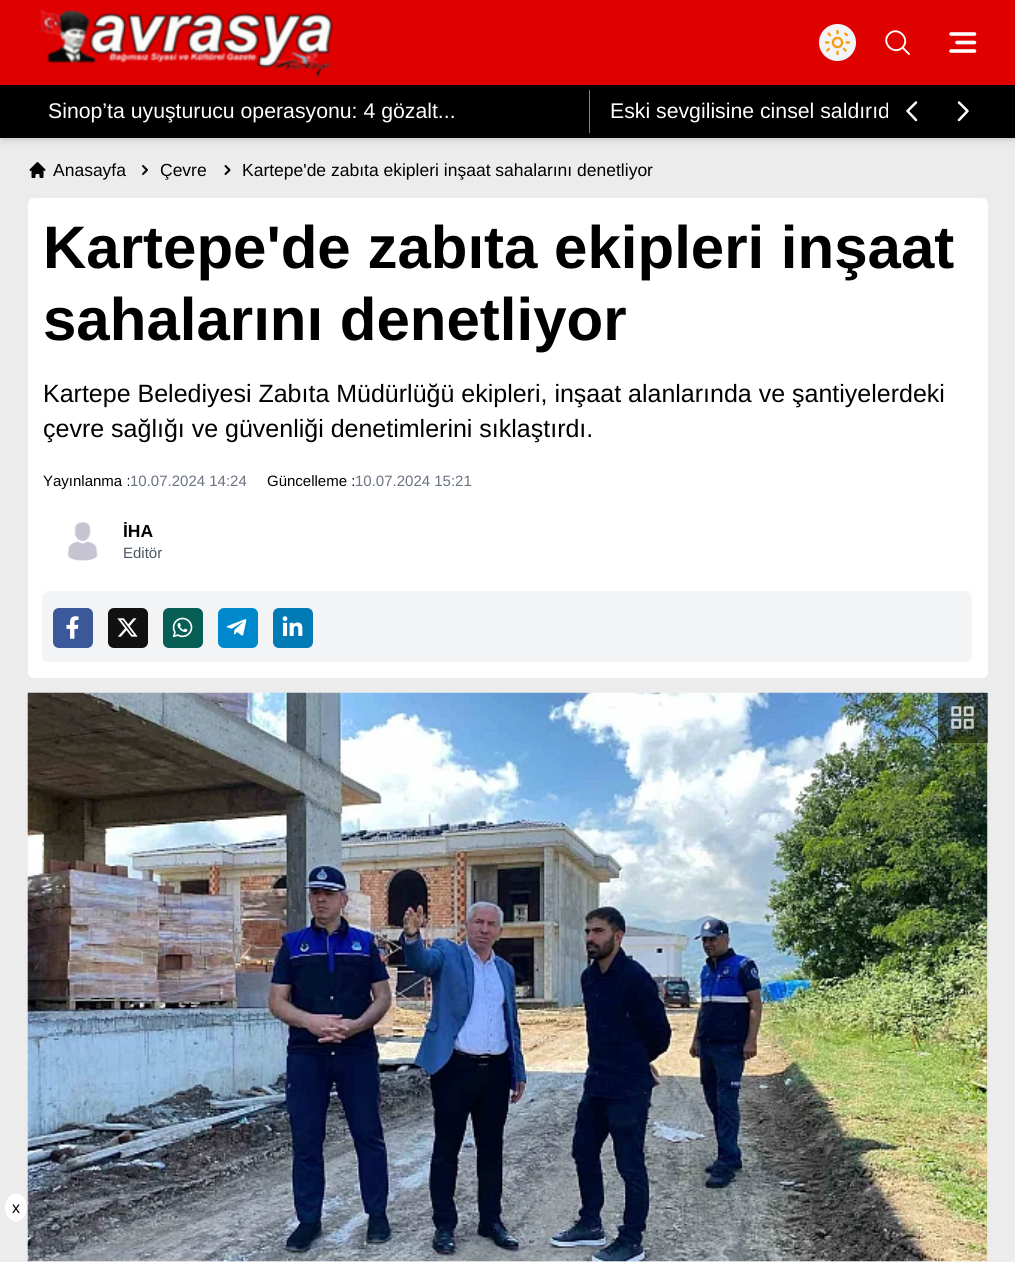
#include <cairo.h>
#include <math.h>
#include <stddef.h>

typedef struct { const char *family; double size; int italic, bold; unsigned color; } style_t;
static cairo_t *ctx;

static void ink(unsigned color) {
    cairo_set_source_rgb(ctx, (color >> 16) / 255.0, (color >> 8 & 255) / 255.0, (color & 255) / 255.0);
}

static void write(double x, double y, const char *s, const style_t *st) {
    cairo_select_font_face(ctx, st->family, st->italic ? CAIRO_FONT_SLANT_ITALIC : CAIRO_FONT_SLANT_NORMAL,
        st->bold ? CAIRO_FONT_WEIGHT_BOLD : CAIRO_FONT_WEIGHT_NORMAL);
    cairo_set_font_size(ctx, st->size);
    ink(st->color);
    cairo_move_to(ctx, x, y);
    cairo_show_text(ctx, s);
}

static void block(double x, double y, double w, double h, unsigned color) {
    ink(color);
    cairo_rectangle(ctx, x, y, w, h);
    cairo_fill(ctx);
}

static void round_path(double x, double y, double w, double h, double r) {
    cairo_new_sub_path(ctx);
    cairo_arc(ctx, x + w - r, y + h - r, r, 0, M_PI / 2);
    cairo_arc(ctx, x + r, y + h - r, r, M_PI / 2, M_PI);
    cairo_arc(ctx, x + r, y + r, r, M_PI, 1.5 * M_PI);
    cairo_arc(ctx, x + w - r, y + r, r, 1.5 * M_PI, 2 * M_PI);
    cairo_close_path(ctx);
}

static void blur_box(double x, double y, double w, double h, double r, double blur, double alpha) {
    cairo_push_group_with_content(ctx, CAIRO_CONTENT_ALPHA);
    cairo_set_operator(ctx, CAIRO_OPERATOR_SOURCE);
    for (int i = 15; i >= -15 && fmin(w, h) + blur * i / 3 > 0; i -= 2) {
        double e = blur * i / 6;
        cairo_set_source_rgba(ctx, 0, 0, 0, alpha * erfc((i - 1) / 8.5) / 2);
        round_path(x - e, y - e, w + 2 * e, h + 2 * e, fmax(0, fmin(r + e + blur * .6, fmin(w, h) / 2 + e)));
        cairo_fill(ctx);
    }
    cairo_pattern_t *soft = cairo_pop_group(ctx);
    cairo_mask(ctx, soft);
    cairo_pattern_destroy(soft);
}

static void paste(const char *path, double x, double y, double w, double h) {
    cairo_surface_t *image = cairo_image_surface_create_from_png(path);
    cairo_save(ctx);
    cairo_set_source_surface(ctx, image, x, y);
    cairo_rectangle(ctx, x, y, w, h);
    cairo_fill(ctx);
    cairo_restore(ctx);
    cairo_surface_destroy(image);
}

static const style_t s1 = {"Liberation Sans", 21.25, 0, 0, 0xffffff};
static const style_t s2 = {"Liberation Sans", 17.5, 0, 0, 0x000000};
static const style_t s3 = {"Liberation Sans", 60, 0, 1, 0x000000};
static const style_t s4 = {"Liberation Sans", 25, 0, 0, 0x000000};
static const style_t s5 = {"Liberation Sans", 15, 0, 0, 0x000000};
static const style_t s6 = {"Liberation Sans", 15, 0, 0, 0x6b7280};
static const style_t s7 = {"Liberation Sans", 17.5, 0, 1, 0x000000};
static const style_t s8 = {"Liberation Sans", 15, 0, 0, 0x4b5563};
static const style_t s9 = {"Liberation Sans", 16, 0, 0, 0x000000};

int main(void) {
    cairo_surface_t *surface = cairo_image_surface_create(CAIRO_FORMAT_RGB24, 1015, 1262);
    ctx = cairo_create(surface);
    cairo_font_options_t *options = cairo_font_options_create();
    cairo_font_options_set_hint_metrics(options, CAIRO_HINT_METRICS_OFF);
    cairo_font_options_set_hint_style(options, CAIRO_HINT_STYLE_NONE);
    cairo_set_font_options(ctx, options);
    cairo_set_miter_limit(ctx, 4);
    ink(0xececec);
    cairo_paint(ctx);
    ink(0x000000);
    blur_box(3, 90, 1010, 48, 0, 2.5, 0.1);
    blur_box(1, 91, 1013, 50, 0, 4, 0.1);
    block(0, 85, 1015, 53, 0x000000);
    block(589, 90, 1, 43, 0x808080);
    cairo_new_path(ctx);
    cairo_move_to(ctx, 916, 120);
    cairo_line_to(ctx, 907.5, 111);
    cairo_line_to(ctx, 916, 102.5);
    cairo_move_to(ctx, 959, 102.5);
    cairo_line_to(ctx, 967.5, 111);
    cairo_line_to(ctx, 959, 120);
    ink(0xffffff);
    cairo_set_line_width(ctx, 2.5);
    cairo_set_line_cap(ctx, CAIRO_LINE_CAP_ROUND);
    cairo_set_line_join(ctx, CAIRO_LINE_JOIN_ROUND);
    cairo_stroke(ctx);
    ink(0x000000);
    blur_box(1, 6, 1013, 83, 0, 4, 0.1);
    block(0, 0, 1015, 85, 0xdf0000);
    paste("pic1.png", 40, 9, 293, 68);
    ink(0xf3f4f6);
    cairo_arc(ctx, 837.5, 42.5, 18.5, 0, 2 * M_PI);
    cairo_fill(ctx);
    paste("pic2.png", 824, 29, 27, 27);
    cairo_new_path(ctx);
    cairo_move_to(ctx, 909, 54);
    cairo_line_to(ctx, 902.5, 47.5);
    cairo_move_to(ctx, 902.5, 47.5);
    cairo_curve_to(ctx, 911, 38.5, 897.5, 25.5, 889, 34);
    cairo_curve_to(ctx, 880.5, 42.5, 893.5, 56, 902.5, 47.5);
    cairo_close_path(ctx);
    ink(0xffffff);
    cairo_set_line_width(ctx, 1.9);
    cairo_stroke(ctx);
    cairo_new_path(ctx);
    cairo_move_to(ctx, 974.5, 34);
    cairo_line_to(ctx, 951, 34);
    cairo_move_to(ctx, 974.5, 42.5);
    cairo_line_to(ctx, 957, 42.5);
    cairo_move_to(ctx, 974.5, 51);
    cairo_line_to(ctx, 951, 51);
    cairo_set_line_width(ctx, 3.6);
    cairo_stroke(ctx);
    write(48, 118, "Sinop’ta uyuşturucu operasyonu: 4 gözalt...", &s1);
    cairo_save(ctx);
    cairo_rectangle(ctx, 590, 90, 298, 43);
    cairo_clip(ctx);
    write(610, 118, "Eski sevgilisine cinsel saldırıd", &s1);
    cairo_restore(ctx);
    paste("pic3.png", 29, 162, 17, 16);
    write(53, 176, "Anasayfa", &s2);
    paste("pic4.png", 142, 165, 6, 10);
    write(160, 176, "Çevre", &s2);
    paste("pic5.png", 224, 165, 7, 10);
    write(242, 176, "Kartepe'de zabıta ekipleri inşaat sahalarını denetliyor", &s2);
    ink(0xffffff);
    round_path(28, 198, 960, 480, 6);
    cairo_fill(ctx);
    write(43, 268, "Kartepe'de zabıta ekipleri inşaat", &s3);
    write(43, 340, "sahalarını denetliyor", &s3);
    write(43, 402, "Kartepe Belediyesi Zabıta Müdürlüğü ekipleri, inşaat alanlarında ve şantiyelerdeki", &s4);
    write(43, 437, "çevre sağlığı ve güvenliği denetimlerini sıklaştırdı.", &s4);
    write(43, 486, "Yayınlanma :", &s5);
    write(130, 486, "10.07.2024 14:24", &s6);
    write(267, 486, "Güncelleme :", &s5);
    write(355, 486, "10.07.2024 15:21", &s6);
    paste("pic6.png", 67, 521, 31, 40);
    write(123, 537, "İHA", &s7);
    write(123, 558, "Editör", &s8);
    ink(0xf3f4f6);
    cairo_new_path(ctx);
    cairo_move_to(ctx, 49, 592);
    cairo_line_to(ctx, 966, 592);
    cairo_curve_to(ctx, 970, 592, 972, 595, 972, 598);
    cairo_line_to(ctx, 972, 656);
    cairo_curve_to(ctx, 972, 660, 970, 662, 966, 662);
    cairo_line_to(ctx, 49, 662);
    cairo_curve_to(ctx, 45, 662, 42, 660, 42, 656);
    cairo_line_to(ctx, 42, 598);
    cairo_curve_to(ctx, 42, 595, 45, 592, 49, 592);
    cairo_close_path(ctx);
    cairo_fill(ctx);
    block(46, 591, 924, 1, 0xf3f4f6);
    ink(0x3b5998);
    round_path(53, 608, 40, 40, 6);
    cairo_fill(ctx);
    paste("pic7.png", 66, 616, 13, 23);
    ink(0x111111);
    round_path(108, 608, 40, 40, 6);
    cairo_fill(ctx);
    paste("pic8.png", 117, 618, 21, 19);
    ink(0x075e54);
    round_path(163, 608, 40, 40, 6);
    cairo_fill(ctx);
    paste("pic9.png", 172, 617, 21, 21);
    ink(0x0088cc);
    round_path(218, 608, 40, 40, 6);
    cairo_fill(ctx);
    paste("pic10.png", 226, 619, 21, 17);
    ink(0x007bb5);
    round_path(273, 608, 40, 40, 6);
    cairo_fill(ctx);
    paste("pic11.png", 282, 616, 21, 20);
    block(28, 1261, 960, 1, 0xffffff);
    ink(0x000000);
    blur_box(28, 694, 960, 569, 0, 1, 0.05);
    block(987, 693, 1, 568, 0xf3f4f6);
    paste("pic13.png", 27, 692, 961, 570);
    cairo_save(ctx);
    cairo_rectangle(ctx, 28, 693, 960, 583);
    cairo_clip(ctx);
    cairo_set_fill_rule(ctx, CAIRO_FILL_RULE_EVEN_ODD);
    cairo_new_path(ctx);
    cairo_move_to(ctx, 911, 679);
    cairo_line_to(ctx, 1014, 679);
    cairo_line_to(ctx, 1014, 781);
    cairo_line_to(ctx, 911, 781);
    cairo_close_path(ctx);
    cairo_move_to(ctx, 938, 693);
    cairo_line_to(ctx, 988, 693);
    cairo_line_to(ctx, 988, 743);
    cairo_line_to(ctx, 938, 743);
    cairo_close_path(ctx);
    cairo_clip(ctx);
    ink(0x000000);
    blur_box(941, 709, 43, 42, 0, 9.5, 0.1);
    cairo_restore(ctx);
    cairo_set_source_rgba(ctx, 0, 0, 0, 0.5);
    cairo_rectangle(ctx, 938, 693, 50, 50);
    cairo_fill(ctx);
    paste("pic12.png", 951, 706, 23, 23);
    ink(0xffffff);
    cairo_new_path(ctx);
    cairo_move_to(ctx, 16, 1193.5);
    cairo_curve_to(ctx, 22, 1193.5, 27, 1200, 27, 1207.5);
    cairo_curve_to(ctx, 27, 1215, 22, 1221.5, 16, 1221.5);
    cairo_curve_to(ctx, 10, 1221.5, 5, 1215, 5, 1207.5);
    cairo_curve_to(ctx, 5, 1200, 10, 1193.5, 16, 1193.5);
    cairo_close_path(ctx);
    cairo_fill(ctx);
    write(12, 1213, "x", &s9);
    cairo_surface_write_to_png(surface, "screenshot.png");
    cairo_font_options_destroy(options);
    cairo_destroy(ctx);
    cairo_surface_destroy(surface);
    return 0;
}
